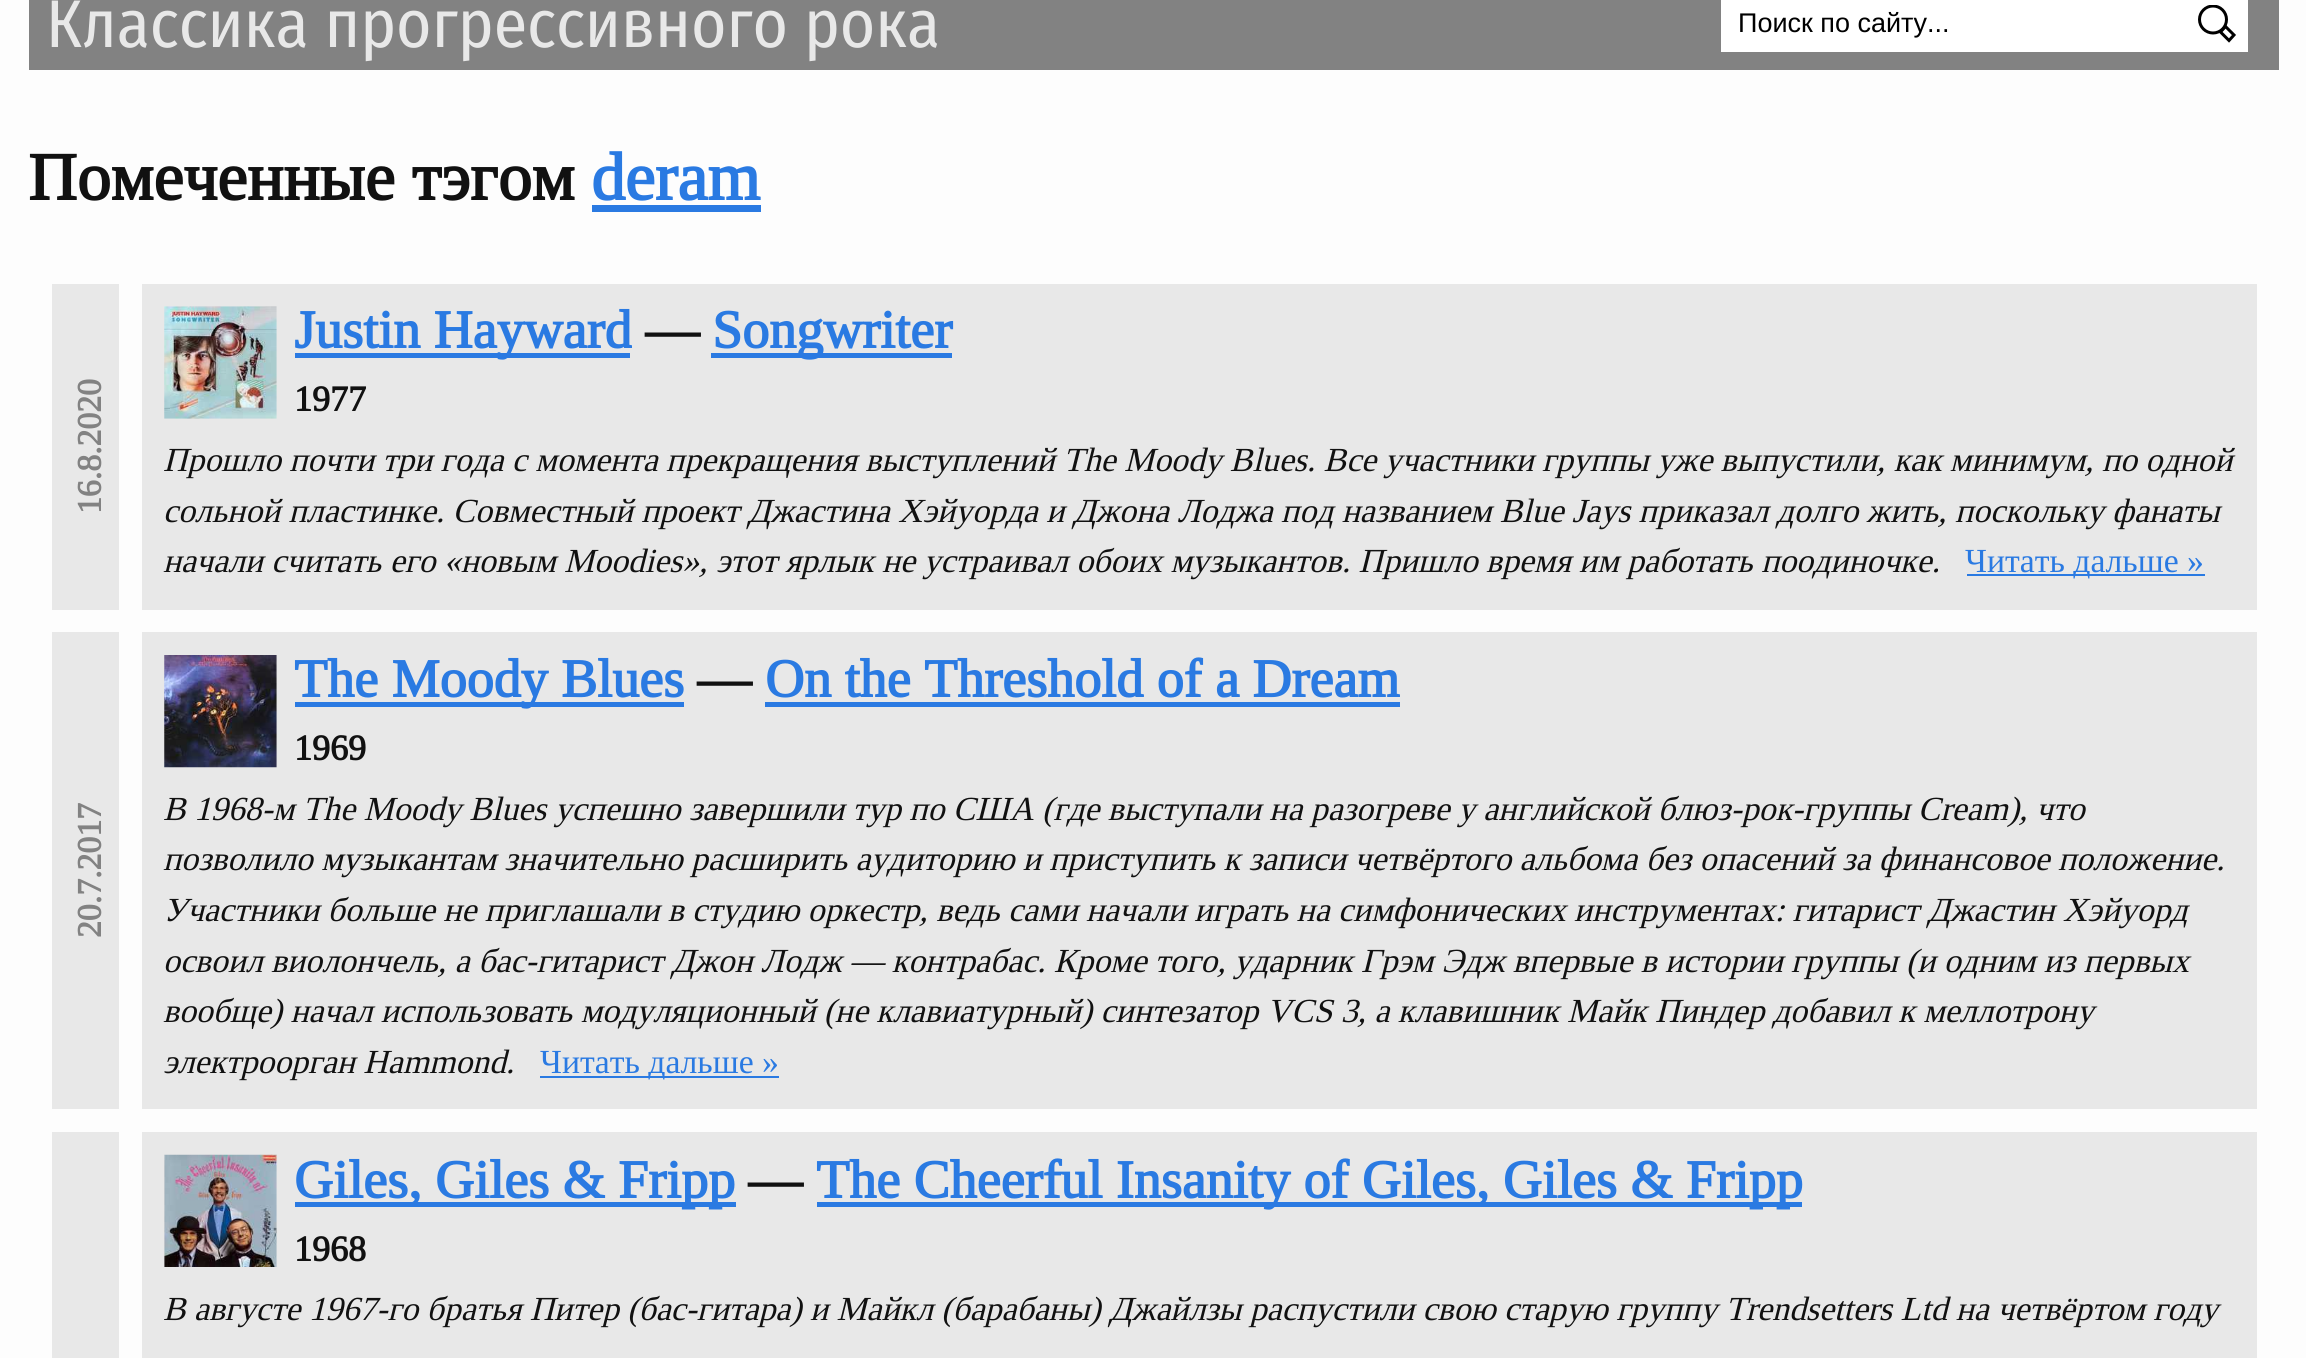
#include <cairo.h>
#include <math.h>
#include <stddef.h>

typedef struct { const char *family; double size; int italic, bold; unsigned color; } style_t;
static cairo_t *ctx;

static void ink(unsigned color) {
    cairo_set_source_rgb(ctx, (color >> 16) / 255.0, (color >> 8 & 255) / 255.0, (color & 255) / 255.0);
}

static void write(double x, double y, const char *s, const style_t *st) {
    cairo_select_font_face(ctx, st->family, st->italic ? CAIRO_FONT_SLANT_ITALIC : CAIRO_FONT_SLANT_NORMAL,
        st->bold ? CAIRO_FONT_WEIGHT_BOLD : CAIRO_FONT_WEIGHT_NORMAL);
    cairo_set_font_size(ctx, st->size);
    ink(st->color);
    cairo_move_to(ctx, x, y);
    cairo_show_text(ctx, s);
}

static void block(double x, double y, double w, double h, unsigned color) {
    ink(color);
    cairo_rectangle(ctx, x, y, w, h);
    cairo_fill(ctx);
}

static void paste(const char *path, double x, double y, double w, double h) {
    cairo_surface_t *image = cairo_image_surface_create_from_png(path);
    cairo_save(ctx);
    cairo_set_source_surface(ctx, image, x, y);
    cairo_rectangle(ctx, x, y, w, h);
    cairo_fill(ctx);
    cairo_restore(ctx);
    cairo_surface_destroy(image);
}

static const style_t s1 = {"Fira Sans Condensed", 67.5, 0, 0, 0xe8e8e8};
static const style_t s2 = {"Liberation Sans", 27, 0, 0, 0x000000};
static const style_t s3 = {"Tinos", 67.5, 0, 1, 0x111111};
static const style_t s4 = {"Tinos", 67.5, 0, 1, 0x2a7ae2};
static const style_t s5 = {"Tinos", 54, 0, 1, 0x2a7ae2};
static const style_t s6 = {"Tinos", 54, 0, 1, 0x111111};
static const style_t s7 = {"Tinos", 36, 0, 1, 0x111111};
static const style_t s8 = {"Tinos", 33.75, 0, 1, 0x828282};
static const style_t s9 = {"Tinos", 33.75, 1, 0, 0x111111};
static const style_t s10 = {"Tinos", 33.75, 0, 0, 0x2a7ae2};

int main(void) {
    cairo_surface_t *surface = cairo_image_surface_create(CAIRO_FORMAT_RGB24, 2306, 1358);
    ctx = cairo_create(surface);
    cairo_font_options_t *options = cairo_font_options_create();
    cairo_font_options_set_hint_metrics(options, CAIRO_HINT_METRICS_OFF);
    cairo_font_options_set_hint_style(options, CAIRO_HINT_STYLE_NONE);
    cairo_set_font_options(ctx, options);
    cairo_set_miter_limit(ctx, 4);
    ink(0xfdfdfd);
    cairo_paint(ctx);
    block(29, 0, 2250, 70, 0x828282);
    write(46, 47, "Классика прогрессивного рока", &s1);
    block(1721, 0, 527, 52, 0xffffff);
    write(1738, 32, "Поиск по сайту...", &s2);
    cairo_save(ctx);
    cairo_rectangle(ctx, 2198, 5, 39, 38);
    cairo_clip(ctx);
    cairo_arc(ctx, 2213, 19.5, 13.5, 0, 2 * M_PI);
    cairo_set_line_width(ctx, 3);
    cairo_stroke(ctx);
    cairo_restore(ctx);
    cairo_new_path(ctx);
    cairo_move_to(ctx, 2220.5, 32);
    cairo_line_to(ctx, 2225.5, 26.5);
    cairo_line_to(ctx, 2234, 35);
    cairo_line_to(ctx, 2229, 40.5);
    cairo_close_path(ctx);
    cairo_set_line_width(ctx, 3);
    cairo_stroke(ctx);
    write(28, 200, "Помеченные тэгом", &s3);
    write(591, 200, "deram", &s4);
    block(592, 205, 169, 7, 0x2a7ae2);
    ink(0xe8e8e8);
    cairo_new_path(ctx);
    cairo_move_to(ctx, 52, 284);
    cairo_line_to(ctx, 52, 610);
    cairo_line_to(ctx, 2167, 610);
    cairo_line_to(ctx, 142, 610);
    cairo_line_to(ctx, 142, 284);
    cairo_close_path(ctx);
    cairo_fill(ctx);
    ink(0xfdfdfd);
    cairo_new_path(ctx);
    cairo_move_to(ctx, 119, 284);
    cairo_line_to(ctx, 119, 610);
    cairo_line_to(ctx, 2234, 610);
    cairo_line_to(ctx, 142, 610);
    cairo_line_to(ctx, 142, 284);
    cairo_close_path(ctx);
    cairo_fill(ctx);
    block(142, 284, 2115, 326, 0xe8e8e8);
    paste("pic1.png", 164, 306, 113, 113);
    block(295, 353, 335, 5, 0x2a7ae2);
    write(294, 348, "Justin Hayward", &s5);
    write(645, 348, "—", &s6);
    block(711, 353, 241, 5, 0x2a7ae2);
    write(712, 348, "Songwriter", &s5);
    write(294, 411, "1977", &s7);
    cairo_save(ctx);
    cairo_translate(ctx, 101, 514);
    cairo_rotate(ctx, -90 * M_PI / 180);
    write(0, 0, "16.8.2020", &s8);
    cairo_restore(ctx);
    write(163, 471, "Прошло почти три года с момента прекращения выступлений The Moody Blues. Все участники группы уже выпустили, как минимум, по одной", &s9);
    write(163, 522, "сольной пластинке. Совместный проект Джастина Хэйуорда и Джона Лоджа под названием Blue Jays приказал долго жить, поскольку фанаты", &s9);
    write(163, 572, "начали считать его «новым Moodies», этот ярлык не устраивал обоих музыкантов. Пришло время им работать поодиночке.", &s9);
    block(1967, 574, 238, 2, 0x2a7ae2);
    write(1965, 572, "Читать дальше »", &s10);
    ink(0xe8e8e8);
    cairo_new_path(ctx);
    cairo_move_to(ctx, 52, 632);
    cairo_line_to(ctx, 52, 1109);
    cairo_line_to(ctx, 142, 1109);
    cairo_line_to(ctx, 142, 632);
    cairo_line_to(ctx, 2167, 632);
    cairo_close_path(ctx);
    cairo_fill(ctx);
    ink(0xfdfdfd);
    cairo_new_path(ctx);
    cairo_move_to(ctx, 119, 632);
    cairo_line_to(ctx, 119, 1109);
    cairo_line_to(ctx, 142, 1109);
    cairo_line_to(ctx, 142, 632);
    cairo_line_to(ctx, 2234, 632);
    cairo_close_path(ctx);
    cairo_fill(ctx);
    block(142, 632, 2115, 477, 0xe8e8e8);
    paste("pic2.png", 164, 655, 113, 113);
    block(295, 702, 389, 5, 0x2a7ae2);
    write(294, 697, "The Moody Blues", &s5);
    write(697, 697, "—", &s6);
    write(765, 697, "On the Threshold of a Dream", &s5);
    block(765, 702, 635, 5, 0x2a7ae2);
    write(294, 760, "1969", &s7);
    cairo_save(ctx);
    cairo_translate(ctx, 101, 938);
    cairo_rotate(ctx, -90 * M_PI / 180);
    write(0, 0, "20.7.2017", &s8);
    cairo_restore(ctx);
    write(163, 820, "В 1968-м The Moody Blues успешно завершили тур по США (где выступали на разогреве у английской блюз-рок-группы Cream), что", &s9);
    write(163, 870, "позволило музыкантам значительно расширить аудиторию и приступить к записи четвёртого альбома без опасений за финансовое положение.", &s9);
    write(163, 921, "Участники больше не приглашали в студию оркестр, ведь сами начали играть на симфонических инструментах: гитарист Джастин Хэйуорд", &s9);
    write(163, 972, "освоил виолончель, а бас-гитарист Джон Лодж — контрабас. Кроме того, ударник Грэм Эдж впервые в истории группы (и одним из первых", &s9);
    write(163, 1022, "вообще) начал использовать модуляционный (не клавиатурный) синтезатор VCS 3, а клавишник Майк Пиндер добавил к меллотрону", &s9);
    write(163, 1073, "электроорган Hammond.", &s9);
    block(540, 1076, 239, 2, 0x2a7ae2);
    write(540, 1073, "Читать дальше »", &s10);
    ink(0xe8e8e8);
    cairo_new_path(ctx);
    cairo_move_to(ctx, 52, 1132);
    cairo_line_to(ctx, 52, 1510);
    cairo_line_to(ctx, 2167, 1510);
    cairo_line_to(ctx, 142, 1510);
    cairo_line_to(ctx, 142, 1132);
    cairo_close_path(ctx);
    cairo_fill(ctx);
    ink(0xfdfdfd);
    cairo_new_path(ctx);
    cairo_move_to(ctx, 119, 1132);
    cairo_line_to(ctx, 119, 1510);
    cairo_line_to(ctx, 2234, 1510);
    cairo_line_to(ctx, 142, 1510);
    cairo_line_to(ctx, 142, 1132);
    cairo_close_path(ctx);
    cairo_fill(ctx);
    block(142, 1132, 2115, 226, 0xe8e8e8);
    paste("pic3.png", 164, 1154, 113, 113);
    block(295, 1202, 441, 5, 0x2a7ae2);
    write(294, 1198, "Giles, Giles & Fripp", &s5);
    write(748, 1198, "—", &s6);
    block(817, 1202, 985, 5, 0x2a7ae2);
    write(816, 1198, "The Cheerful Insanity of Giles, Giles & Fripp", &s5);
    write(294, 1261, "1968", &s7);
    write(163, 1320, "В августе 1967-го братья Питер (бас-гитара) и Майкл (барабаны) Джайлзы распустили свою старую группу Trendsetters Ltd на четвёртом году", &s9);
    cairo_surface_write_to_png(surface, "screenshot.png");
    cairo_font_options_destroy(options);
    cairo_destroy(ctx);
    cairo_surface_destroy(surface);
    return 0;
}
